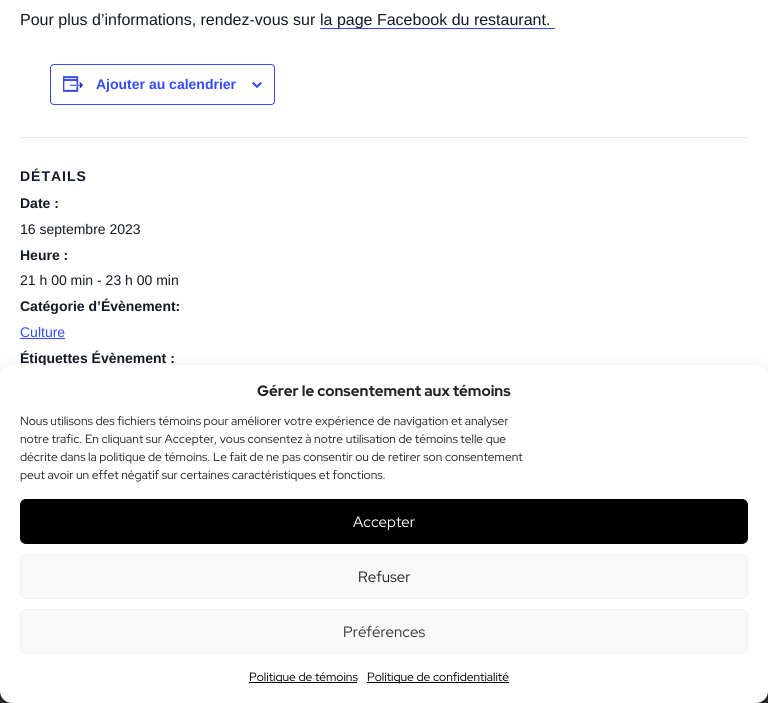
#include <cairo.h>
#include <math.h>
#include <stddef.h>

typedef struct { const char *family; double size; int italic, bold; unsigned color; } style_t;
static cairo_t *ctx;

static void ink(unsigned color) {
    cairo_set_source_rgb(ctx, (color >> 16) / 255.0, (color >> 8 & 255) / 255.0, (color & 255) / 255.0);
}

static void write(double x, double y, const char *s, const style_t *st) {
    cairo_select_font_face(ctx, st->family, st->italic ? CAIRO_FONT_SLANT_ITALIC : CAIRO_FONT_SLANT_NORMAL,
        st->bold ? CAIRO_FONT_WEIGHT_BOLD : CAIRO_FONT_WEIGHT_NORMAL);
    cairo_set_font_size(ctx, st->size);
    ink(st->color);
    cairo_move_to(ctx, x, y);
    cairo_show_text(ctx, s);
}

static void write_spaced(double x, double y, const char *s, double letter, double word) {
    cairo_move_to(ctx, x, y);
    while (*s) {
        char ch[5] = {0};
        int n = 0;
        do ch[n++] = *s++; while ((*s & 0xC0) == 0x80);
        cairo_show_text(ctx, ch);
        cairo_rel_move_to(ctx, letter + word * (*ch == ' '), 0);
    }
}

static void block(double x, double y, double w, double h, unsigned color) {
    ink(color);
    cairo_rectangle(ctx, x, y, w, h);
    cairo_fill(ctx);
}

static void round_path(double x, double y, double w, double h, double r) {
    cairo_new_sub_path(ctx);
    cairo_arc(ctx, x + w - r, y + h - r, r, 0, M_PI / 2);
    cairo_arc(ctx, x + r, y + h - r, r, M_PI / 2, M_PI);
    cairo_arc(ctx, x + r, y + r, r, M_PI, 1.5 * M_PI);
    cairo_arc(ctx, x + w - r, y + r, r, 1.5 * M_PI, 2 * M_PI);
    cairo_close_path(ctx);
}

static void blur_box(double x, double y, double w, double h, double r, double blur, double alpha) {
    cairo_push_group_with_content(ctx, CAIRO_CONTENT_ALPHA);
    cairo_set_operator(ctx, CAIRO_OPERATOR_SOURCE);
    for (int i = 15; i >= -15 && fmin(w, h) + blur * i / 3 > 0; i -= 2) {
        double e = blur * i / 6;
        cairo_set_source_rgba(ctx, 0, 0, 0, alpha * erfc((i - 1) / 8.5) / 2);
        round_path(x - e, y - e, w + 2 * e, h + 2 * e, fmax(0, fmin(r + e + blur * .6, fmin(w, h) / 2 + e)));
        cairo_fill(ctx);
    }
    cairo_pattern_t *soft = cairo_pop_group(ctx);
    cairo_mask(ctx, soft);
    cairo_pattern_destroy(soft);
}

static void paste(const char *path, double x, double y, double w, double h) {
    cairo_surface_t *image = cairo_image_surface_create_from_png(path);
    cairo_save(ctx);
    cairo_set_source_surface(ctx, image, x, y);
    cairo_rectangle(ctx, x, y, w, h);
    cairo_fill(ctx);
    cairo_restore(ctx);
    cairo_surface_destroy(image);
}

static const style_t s1 = {"Liberation Sans", 16, 0, 0, 0x141827};
static const style_t s2 = {"Liberation Sans", 14, 0, 1, 0x334aff};
static const style_t s3 = {"Liberation Sans", 14, 0, 1, 0x141827};
static const style_t s4 = {"Liberation Sans", 14, 0, 0, 0x141827};
static const style_t s5 = {"Liberation Sans", 14, 0, 0, 0x334aff};
static const style_t s6 = {"Red Hat Display", 15, 0, 1, 0x222222};
static const style_t s7 = {"Red Hat Display", 12, 0, 0, 0x222222};
static const style_t s8 = {"Red Hat Display", 15, 0, 0, 0xffffff};
static const style_t s9 = {"Red Hat Display", 15, 0, 0, 0x222222};
static const style_t s10 = {"Red Hat Display", 15, 0, 0, 0x333333};
static const style_t s11 = {"Red Hat Display", 12, 0, 0, 0x000000};

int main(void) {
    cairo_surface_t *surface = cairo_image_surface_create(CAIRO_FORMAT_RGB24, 768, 703);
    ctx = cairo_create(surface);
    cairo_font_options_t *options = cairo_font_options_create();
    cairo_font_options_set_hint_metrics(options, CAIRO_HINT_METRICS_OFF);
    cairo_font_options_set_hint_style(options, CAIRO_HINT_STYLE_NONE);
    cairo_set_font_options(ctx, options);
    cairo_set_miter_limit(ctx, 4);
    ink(0xffffff);
    cairo_paint(ctx);
    write(20, 25, "Pour plus d’informations, rendez-vous sur", &s1);
    block(320, 28, 235, 1, 0x334aff);
    write(320, 25, "la page Facebook du restaurant.", &s1);
    round_path(50.5, 64.5, 224, 40, 3.5);
    ink(0x334aff);
    cairo_set_line_width(ctx, 1);
    cairo_stroke(ctx);
    paste("pic1.png", 63, 76, 21, 16);
    write(96, 89, "Ajouter au calendrier", &s2);
    paste("pic2.png", 252, 82, 10, 6);
    block(20, 137, 728, 1, 0xe4e4e4);
    ink(0x141827);
    write_spaced(20, 181, "DÉTAILS", 1, 0);
    write(20, 208, "Date :", &s3);
    write(20, 234, "16 septembre 2023", &s4);
    write(20, 260, "Heure :", &s3);
    write(20, 285, "21 h 00 min - 23 h 00 min", &s4);
    write(20, 311, "Catégorie d’Évènement:", &s3);
    write(20, 337, "Culture", &s5);
    block(20, 338, 45, 1, 0x334aff);
    write(20, 363, "Étiquettes Évènement :", &s3);
    block(0, 691, 768, 12, 0x333333);
    ink(0x000000);
    blur_box(0, 371, 768, 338, 12, 3, 0.23);
    blur_box(0, 375, 768, 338, 12, 10, 0.19);
    ink(0xffffff);
    round_path(0, 365, 768, 338, 12);
    cairo_fill(ctx);
    write(257, 396, "Gérer le consentement aux témoins", &s6);
    write(20, 425, "Nous utilisons des fichiers témoins pour améliorer votre expérience de navigation et analyser", &s7);
    write(20, 443, "notre trafic. En cliquant sur Accepter, vous consentez à notre utilisation de témoins telle que", &s7);
    write(20, 461, "décrite dans la politique de témoins. Le fait de ne pas consentir ou de retirer son consentement", &s7);
    write(20, 479, "peut avoir un effet négatif sur certaines caractéristiques et fonctions.", &s7);
    ink(0x000000);
    round_path(20.5, 499.5, 727, 44, 5.5);
    cairo_fill_preserve(ctx);
    cairo_stroke(ctx);
    write(353, 527, "Accepter", &s8);
    ink(0xf9f9f9);
    round_path(20.5, 554.5, 727, 44, 5.5);
    cairo_fill_preserve(ctx);
    ink(0xf2f2f2);
    cairo_stroke(ctx);
    write(358, 582, "Refuser", &s9);
    ink(0xf9f9f9);
    round_path(20.5, 609.5, 727, 44, 5.5);
    cairo_fill_preserve(ctx);
    ink(0xf2f2f2);
    cairo_stroke(ctx);
    write(343, 637, "Préférences", &s10);
    block(249, 682, 108, 1, 0x000000);
    write(249, 681, "Politique de témoins", &s11);
    block(367, 682, 142, 1, 0x000000);
    write(367, 681, "Politique de confidentialité", &s11);
    cairo_surface_write_to_png(surface, "screenshot.png");
    cairo_font_options_destroy(options);
    cairo_destroy(ctx);
    cairo_surface_destroy(surface);
    return 0;
}
